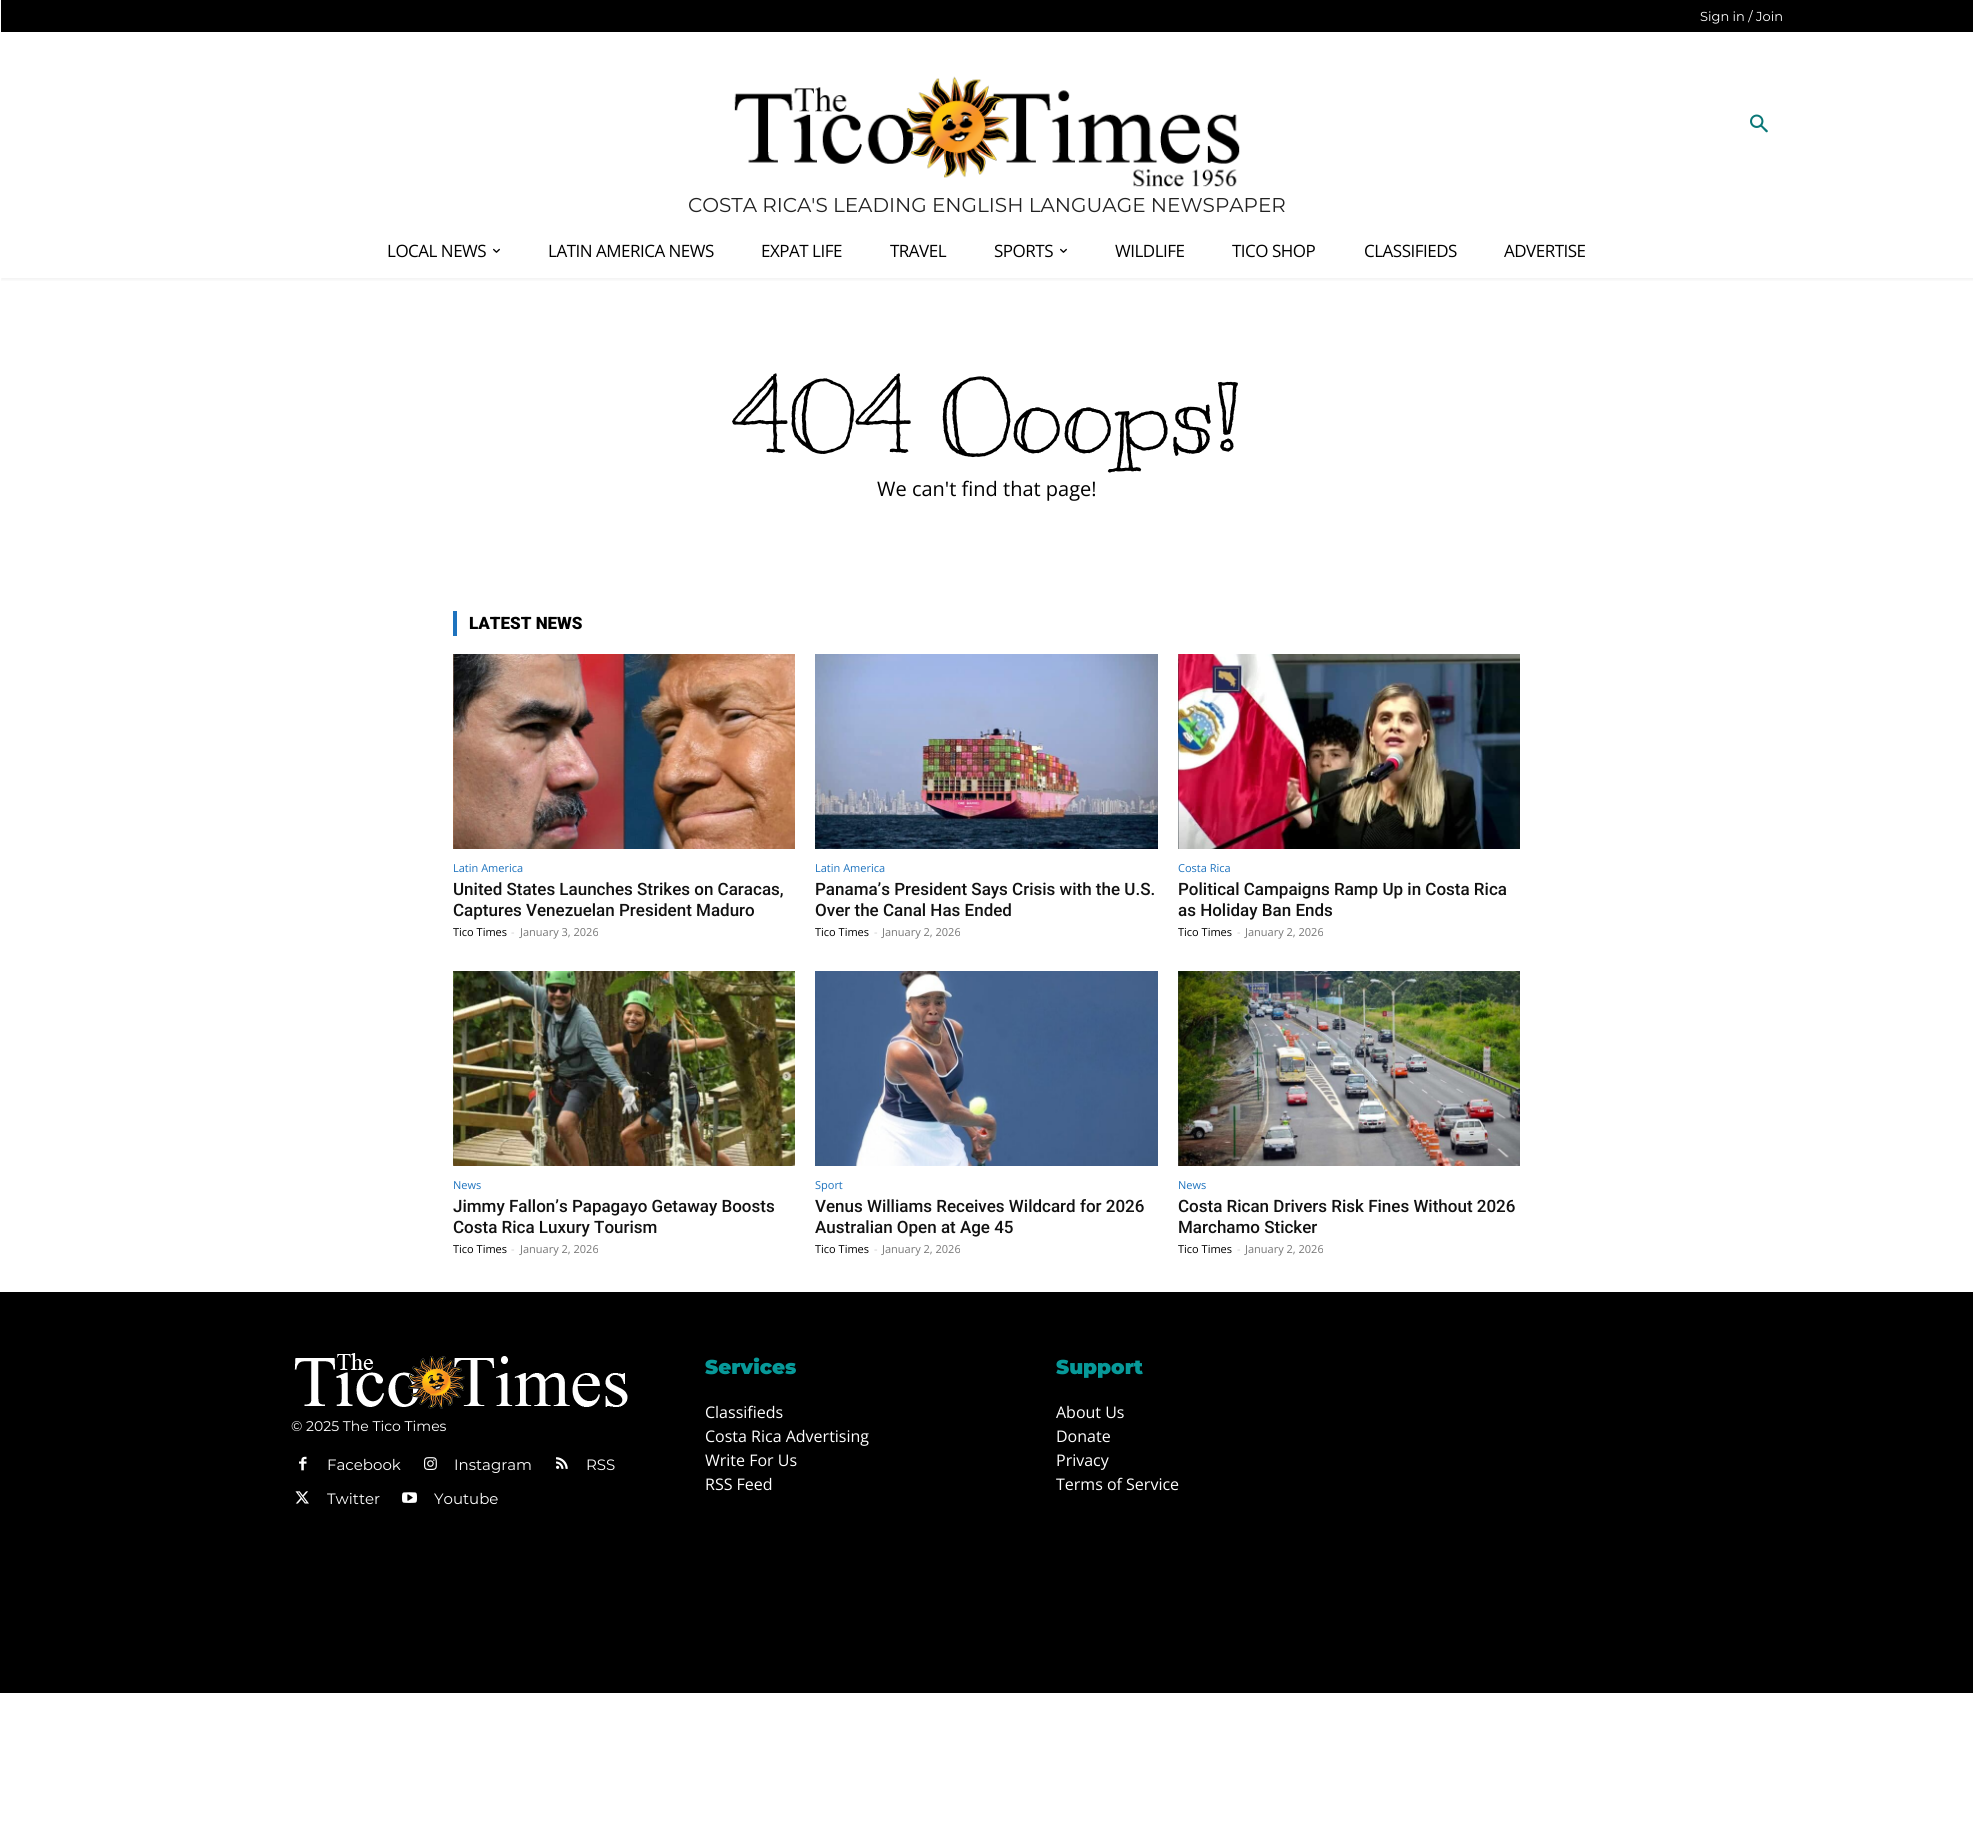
#include <cairo.h>
#include <math.h>
#include <stddef.h>

typedef struct { const char *family; double size; int italic, bold; unsigned color; } style_t;
static cairo_t *ctx;

static void ink(unsigned color) {
    cairo_set_source_rgb(ctx, (color >> 16) / 255.0, (color >> 8 & 255) / 255.0, (color & 255) / 255.0);
}

static void write(double x, double y, const char *s, const style_t *st) {
    cairo_select_font_face(ctx, st->family, st->italic ? CAIRO_FONT_SLANT_ITALIC : CAIRO_FONT_SLANT_NORMAL,
        st->bold ? CAIRO_FONT_WEIGHT_BOLD : CAIRO_FONT_WEIGHT_NORMAL);
    cairo_set_font_size(ctx, st->size);
    ink(st->color);
    cairo_move_to(ctx, x, y);
    cairo_show_text(ctx, s);
}

static void write_spaced(double x, double y, const char *s, double letter, double word) {
    cairo_move_to(ctx, x, y);
    while (*s) {
        char ch[5] = {0};
        int n = 0;
        do ch[n++] = *s++; while ((*s & 0xC0) == 0x80);
        cairo_show_text(ctx, ch);
        cairo_rel_move_to(ctx, letter + word * (*ch == ' '), 0);
    }
}

static void block(double x, double y, double w, double h, unsigned color) {
    ink(color);
    cairo_rectangle(ctx, x, y, w, h);
    cairo_fill(ctx);
}

static void round_path(double x, double y, double w, double h, double r) {
    cairo_new_sub_path(ctx);
    cairo_arc(ctx, x + w - r, y + h - r, r, 0, M_PI / 2);
    cairo_arc(ctx, x + r, y + h - r, r, M_PI / 2, M_PI);
    cairo_arc(ctx, x + r, y + r, r, M_PI, 1.5 * M_PI);
    cairo_arc(ctx, x + w - r, y + r, r, 1.5 * M_PI, 2 * M_PI);
    cairo_close_path(ctx);
}

static void blur_box(double x, double y, double w, double h, double r, double blur, double alpha) {
    cairo_push_group_with_content(ctx, CAIRO_CONTENT_ALPHA);
    cairo_set_operator(ctx, CAIRO_OPERATOR_SOURCE);
    for (int i = 15; i >= -15 && fmin(w, h) + blur * i / 3 > 0; i -= 2) {
        double e = blur * i / 6;
        cairo_set_source_rgba(ctx, 0, 0, 0, alpha * erfc((i - 1) / 8.5) / 2);
        round_path(x - e, y - e, w + 2 * e, h + 2 * e, fmax(0, fmin(r + e + blur * .6, fmin(w, h) / 2 + e)));
        cairo_fill(ctx);
    }
    cairo_pattern_t *soft = cairo_pop_group(ctx);
    cairo_mask(ctx, soft);
    cairo_pattern_destroy(soft);
}

static void paste(const char *path, double x, double y, double w, double h) {
    cairo_surface_t *image = cairo_image_surface_create_from_png(path);
    cairo_save(ctx);
    cairo_set_source_surface(ctx, image, x, y);
    cairo_rectangle(ctx, x, y, w, h);
    cairo_fill(ctx);
    cairo_restore(ctx);
    cairo_surface_destroy(image);
}

static const style_t s1 = {"Montserrat", 13, 0, 0, 0xffffff};
static const style_t s2 = {"Montserrat", 20, 0, 0, 0x222222};
static const style_t s3 = {"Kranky", 100, 0, 0, 0x000000};
static const style_t s4 = {"Open Sans", 20, 0, 0, 0x000000};
static const style_t s5 = {"Roboto Black", 17, 0, 0, 0x000000};
static const style_t s6 = {"Open Sans", 11, 0, 0, 0x1e73be};
static const style_t s7 = {"Roboto Medium", 17, 0, 0, 0x111111};
static const style_t s8 = {"Open Sans", 11, 0, 0, 0x000000};
static const style_t s9 = {"Open Sans", 11, 0, 0, 0xcccccc};
static const style_t s10 = {"Open Sans", 11, 0, 0, 0x767676};
static const style_t s11 = {"Montserrat", 14, 0, 0, 0xffffff};
static const style_t s12 = {"Montserrat", 15, 0, 0, 0xffffff};
static const style_t s13 = {"Montserrat Black", 20, 0, 0, 0x079999};
static const style_t s14 = {"Open Sans", 16, 0, 0, 0xffffff};

int main(void) {
    cairo_surface_t *surface = cairo_image_surface_create(CAIRO_FORMAT_RGB24, 1973, 1838);
    ctx = cairo_create(surface);
    cairo_font_options_t *options = cairo_font_options_create();
    cairo_font_options_set_hint_metrics(options, CAIRO_HINT_METRICS_OFF);
    cairo_font_options_set_hint_style(options, CAIRO_HINT_STYLE_NONE);
    cairo_set_font_options(ctx, options);
    cairo_set_miter_limit(ctx, 4);
    ink(0xffffff);
    cairo_paint(ctx);
    block(1, 0, 1972, 32, 0x000000);
    write(1700, 21, "Sign in / Join", &s1);
    paste("pic1.png", 734, 76, 506, 111);
    paste("pic2.png", 1750, 114, 18, 19);
    write(688, 212, "COSTA RICA'S LEADING ENGLISH LANGUAGE NEWSPAPER", &s2);
    cairo_save(ctx);
    cairo_rectangle(ctx, 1, 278, 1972, 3);
    cairo_clip(ctx);
    ink(0x000000);
    blur_box(1, 225, 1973, 55, 0, 2, 0.06);
    cairo_restore(ctx);
    cairo_select_font_face(ctx, "Open Sans", CAIRO_FONT_SLANT_NORMAL, CAIRO_FONT_WEIGHT_NORMAL);
    cairo_set_font_size(ctx, 17);
    ink(0x000000);
    write_spaced(387, 257, "LOCAL NEWS", -0.5, 0);
    paste("pic3.png", 493, 248, 7, 5);
    write_spaced(548, 257, "LATIN AMERICA NEWS", -0.5, 0);
    write_spaced(761, 257, "EXPAT LIFE", -0.5, 0);
    write_spaced(890, 257, "TRAVEL", -0.5, 0);
    write_spaced(994, 257, "SPORTS", -0.5, 0);
    paste("pic3.png", 1060, 248, 7, 5);
    write_spaced(1115, 257, "WILDLIFE", -0.5, 0);
    write_spaced(1232, 257, "TICO SHOP", -0.5, 0);
    write_spaced(1364, 257, "CLASSIFIEDS", -0.5, 0);
    write_spaced(1504, 257, "ADVERTISE", -0.5, 0);
    write(733, 451, "404 Ooops!", &s3);
    write(877, 496, "We can't find that page!", &s4);
    block(453, 611, 4, 25, 0x1e73be);
    write(469, 629, "LATEST NEWS", &s5);
    paste("pic4.png", 453, 654, 342, 195);
    write(453, 872, "Latin America", &s6);
    write(453, 895, "United States Launches Strikes on Caracas,", &s7);
    write(453, 916, "Captures Venezuelan President Maduro", &s7);
    write(453, 936, "Tico Times", &s8);
    write(511, 936, "-", &s9);
    write(520, 936, "January 3, 2026", &s10);
    paste("pic5.png", 815, 654, 343, 195);
    write(815, 872, "Latin America", &s6);
    write(815, 895, "Panama’s President Says Crisis with the U.S.", &s7);
    write(815, 916, "Over the Canal Has Ended", &s7);
    write(815, 936, "Tico Times", &s8);
    write(874, 936, "-", &s9);
    write(882, 936, "January 2, 2026", &s10);
    paste("pic6.png", 1178, 654, 342, 195);
    write(1178, 872, "Costa Rica", &s6);
    write(1178, 895, "Political Campaigns Ramp Up in Costa Rica", &s7);
    write(1178, 916, "as Holiday Ban Ends", &s7);
    write(1178, 936, "Tico Times", &s8);
    write(1237, 936, "-", &s9);
    write(1245, 936, "January 2, 2026", &s10);
    paste("pic7.png", 453, 971, 342, 195);
    write(453, 1189, "News", &s6);
    write(453, 1212, "Jimmy Fallon’s Papagayo Getaway Boosts", &s7);
    write(453, 1233, "Costa Rica Luxury Tourism", &s7);
    write(453, 1253, "Tico Times", &s8);
    write(511, 1253, "-", &s9);
    write(520, 1253, "January 2, 2026", &s10);
    paste("pic8.png", 815, 971, 343, 195);
    write(815, 1189, "Sport", &s6);
    write(815, 1212, "Venus Williams Receives Wildcard for 2026", &s7);
    write(815, 1233, "Australian Open at Age 45", &s7);
    write(815, 1253, "Tico Times", &s8);
    write(874, 1253, "-", &s9);
    write(882, 1253, "January 2, 2026", &s10);
    paste("pic9.png", 1178, 971, 342, 195);
    write(1178, 1189, "News", &s6);
    write(1178, 1212, "Costa Rican Drivers Risk Fines Without 2026", &s7);
    write(1178, 1233, "Marchamo Sticker", &s7);
    write(1178, 1253, "Tico Times", &s8);
    write(1237, 1253, "-", &s9);
    write(1245, 1253, "January 2, 2026", &s10);
    block(0, 1292, 1973, 401, 0x000000);
    paste("pic10.png", 294, 1353, 334, 56);
    write(291, 1431, "© 2025 The Tico Times", &s11);
    paste("pic11.png", 299, 1456, 8, 15);
    write(327, 1470, "Facebook", &s12);
    paste("pic12.png", 424, 1457, 13, 13);
    write(454, 1470, "Instagram", &s12);
    paste("pic13.png", 556, 1457, 12, 12);
    write(586, 1470, "RSS", &s12);
    paste("pic14.png", 295, 1491, 14, 13);
    write(327, 1504, "Twitter", &s12);
    paste("pic15.png", 402, 1492, 15, 11);
    write(434, 1504, "Youtube", &s12);
    write(705, 1374, "Services", &s13);
    write(705, 1418, "Classifieds", &s14);
    write(705, 1442, "Costa Rica Advertising", &s14);
    write(705, 1466, "Write For Us", &s14);
    write(705, 1490, "RSS Feed", &s14);
    write(1056, 1374, "Support", &s13);
    write(1056, 1418, "About Us", &s14);
    write(1056, 1442, "Donate", &s14);
    write(1056, 1466, "Privacy", &s14);
    write(1056, 1490, "Terms of Service", &s14);
    cairo_surface_write_to_png(surface, "screenshot.png");
    cairo_font_options_destroy(options);
    cairo_destroy(ctx);
    cairo_surface_destroy(surface);
    return 0;
}
